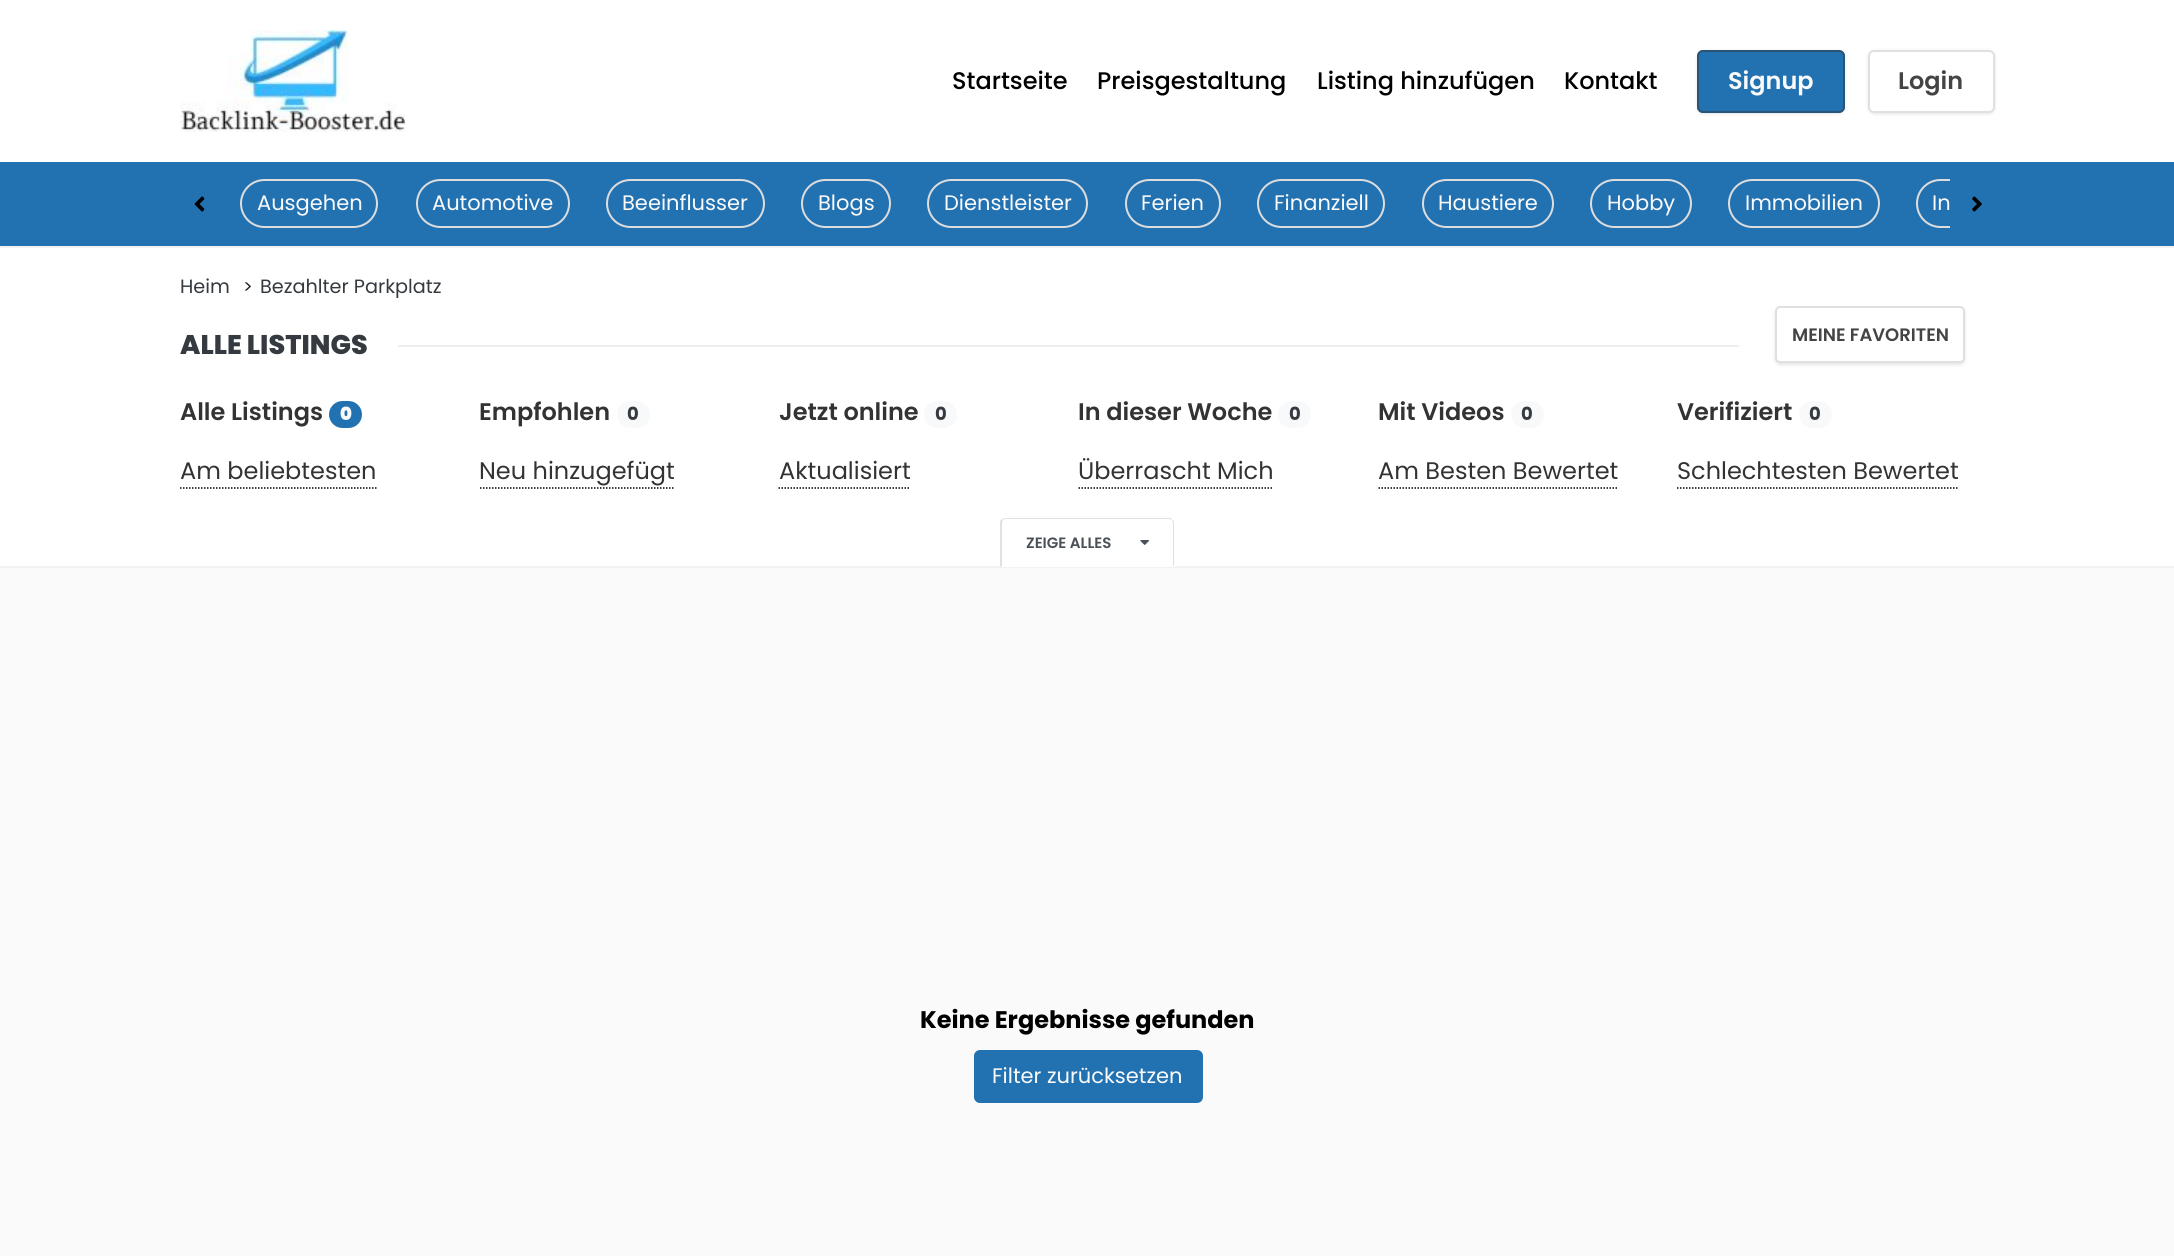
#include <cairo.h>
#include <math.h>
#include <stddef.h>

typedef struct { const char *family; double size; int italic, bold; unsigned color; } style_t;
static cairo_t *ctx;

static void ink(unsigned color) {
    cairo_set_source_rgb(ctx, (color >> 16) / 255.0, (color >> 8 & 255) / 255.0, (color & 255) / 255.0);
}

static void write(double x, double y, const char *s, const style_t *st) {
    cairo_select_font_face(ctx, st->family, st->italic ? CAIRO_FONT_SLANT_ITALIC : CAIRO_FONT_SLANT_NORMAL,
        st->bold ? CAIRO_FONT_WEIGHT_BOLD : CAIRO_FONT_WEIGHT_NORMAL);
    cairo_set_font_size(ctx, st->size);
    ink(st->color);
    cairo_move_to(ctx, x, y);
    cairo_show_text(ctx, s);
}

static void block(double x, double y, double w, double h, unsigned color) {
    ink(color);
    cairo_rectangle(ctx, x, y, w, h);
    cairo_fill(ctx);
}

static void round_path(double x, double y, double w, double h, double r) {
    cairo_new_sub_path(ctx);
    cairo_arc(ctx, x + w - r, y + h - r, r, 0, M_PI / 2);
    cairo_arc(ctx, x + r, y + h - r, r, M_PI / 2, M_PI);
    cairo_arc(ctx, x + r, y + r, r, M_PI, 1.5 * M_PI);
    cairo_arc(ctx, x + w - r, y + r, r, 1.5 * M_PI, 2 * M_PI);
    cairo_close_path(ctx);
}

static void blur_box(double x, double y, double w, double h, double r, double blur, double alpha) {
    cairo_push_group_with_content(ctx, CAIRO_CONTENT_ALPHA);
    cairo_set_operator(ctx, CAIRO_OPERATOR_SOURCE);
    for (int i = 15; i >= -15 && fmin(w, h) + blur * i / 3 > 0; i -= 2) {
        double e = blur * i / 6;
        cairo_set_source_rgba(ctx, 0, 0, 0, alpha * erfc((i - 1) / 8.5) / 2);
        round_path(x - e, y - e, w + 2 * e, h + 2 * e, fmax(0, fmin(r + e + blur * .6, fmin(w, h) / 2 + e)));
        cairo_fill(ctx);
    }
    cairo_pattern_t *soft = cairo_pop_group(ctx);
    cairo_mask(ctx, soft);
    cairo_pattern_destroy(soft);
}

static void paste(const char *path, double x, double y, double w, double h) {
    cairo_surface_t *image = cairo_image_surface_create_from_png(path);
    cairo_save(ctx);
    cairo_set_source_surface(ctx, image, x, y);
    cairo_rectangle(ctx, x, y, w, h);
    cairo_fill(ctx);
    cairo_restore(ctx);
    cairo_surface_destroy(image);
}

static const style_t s1 = {"Poppins Medium", 24, 0, 0, 0x000000};
static const style_t s2 = {"Poppins SemiBold", 24, 0, 0, 0xfafafb};
static const style_t s3 = {"Poppins SemiBold", 24, 0, 0, 0x444444};
static const style_t s4 = {"Poppins", 21, 0, 0, 0xfafafb};
static const style_t s5 = {"Poppins", 19.25, 0, 0, 0x343a40};
static const style_t s6 = {"Poppins", 18, 0, 0, 0x212529};
static const style_t s7 = {"Poppins ExtraBold", 27, 0, 0, 0x343a40};
static const style_t s8 = {"Poppins SemiBold", 18, 0, 0, 0x444444};
static const style_t s9 = {"Poppins SemiBold", 24, 0, 0, 0x333333};
static const style_t s10 = {"Poppins Black", 18, 0, 0, 0xfafafb};
static const style_t s11 = {"Poppins", 18, 0, 1, 0x343a40};
static const style_t s12 = {"Poppins", 24, 0, 0, 0x333333};
static const style_t s13 = {"Poppins SemiBold", 15, 0, 0, 0x495057};
static const style_t s14 = {"Poppins", 24, 0, 1, 0x000000};

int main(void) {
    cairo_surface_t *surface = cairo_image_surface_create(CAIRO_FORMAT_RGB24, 2174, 1256);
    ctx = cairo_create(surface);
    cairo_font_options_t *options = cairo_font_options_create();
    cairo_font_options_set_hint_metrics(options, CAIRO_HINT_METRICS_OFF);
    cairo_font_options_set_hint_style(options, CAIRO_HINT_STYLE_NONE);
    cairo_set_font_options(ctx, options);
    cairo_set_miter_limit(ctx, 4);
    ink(0xfafafb);
    cairo_paint(ctx);
    block(0, 0, 2174, 162, 0xffffff);
    paste("pic1.png", 180, 30, 225, 102);
    write(952, 89, "Startseite", &s1);
    write(1097, 89, "Preisgestaltung", &s1);
    write(1317, 89, "Listing hinzufügen", &s1);
    write(1564, 89, "Kontakt", &s1);
    ink(0x000000);
    blur_box(1697, 51, 148, 63, 6, 1.5, 0.1);
    ink(0x2271b1);
    round_path(1697, 50, 148, 63, 6);
    cairo_fill(ctx);
    round_path(1698, 51, 146, 61, 5);
    cairo_set_source_rgba(ctx, 0.212, 0.212, 0.212, 0.49);
    cairo_stroke(ctx);
    write(1728, 89, "Signup", &s2);
    ink(0x000000);
    blur_box(1868, 51, 127, 63, 6, 1.5, 0.1);
    ink(0xffffff);
    round_path(1869, 51, 125, 61, 5);
    cairo_fill_preserve(ctx);
    ink(0xe0e0e0);
    cairo_stroke(ctx);
    write(1898, 89, "Login", &s3);
    block(0, 162, 2174, 84, 0x2271b1);
    block(0, 246, 2174, 2, 0xf2f2f2);
    round_path(241, 180, 136, 47, 23.5);
    ink(0xdddddd);
    cairo_stroke(ctx);
    write(257, 210, "Ausgehen", &s4);
    round_path(417, 180, 152, 47, 23.5);
    ink(0xdddddd);
    cairo_stroke(ctx);
    write(432, 210, "Automotive", &s4);
    round_path(607, 180, 157, 47, 23.5);
    ink(0xdddddd);
    cairo_stroke(ctx);
    write(622, 210, "Beeinflusser", &s4);
    round_path(802, 180, 88, 47, 23.5);
    ink(0xdddddd);
    cairo_stroke(ctx);
    write(818, 210, "Blogs", &s4);
    round_path(928, 180, 159, 47, 23.5);
    ink(0xdddddd);
    cairo_stroke(ctx);
    write(944, 210, "Dienstleister", &s4);
    round_path(1126, 180, 94, 47, 23.5);
    ink(0xdddddd);
    cairo_stroke(ctx);
    write(1141, 210, "Ferien", &s4);
    round_path(1258, 180, 126, 47, 23.5);
    ink(0xdddddd);
    cairo_stroke(ctx);
    write(1274, 210, "Finanziell", &s4);
    round_path(1423, 180, 130, 47, 23.5);
    ink(0xdddddd);
    cairo_stroke(ctx);
    write(1438, 210, "Haustiere", &s4);
    round_path(1591, 180, 100, 47, 23.5);
    ink(0xdddddd);
    cairo_stroke(ctx);
    write(1607, 210, "Hobby", &s4);
    round_path(1729, 180, 150, 47, 23.5);
    ink(0xdddddd);
    cairo_stroke(ctx);
    write(1745, 210, "Immobilien", &s4);
    cairo_save(ctx);
    cairo_rectangle(ctx, 225, 179, 1725, 49);
    cairo_clip(ctx);
    round_path(1917, 180, 118, 47, 23.5);
    ink(0xdddddd);
    cairo_stroke(ctx);
    cairo_restore(ctx);
    write(1932, 210, "In", &s4);
    paste("pic2.png", 194, 196, 11, 16);
    paste("pic3.png", 1972, 196, 10, 16);
    block(0, 248, 2174, 318, 0xffffff);
    block(0, 566, 2174, 2, 0xf2f2f2);
    write(180, 293, "Heim", &s5);
    write(243, 293, ">", &s6);
    write(260, 293, "Bezahlter Parkplatz", &s5);
    block(398, 345, 1341, 2, 0xeeeeee);
    write(180, 354, "ALLE LISTINGS", &s7);
    ink(0x000000);
    blur_box(1775, 308, 190, 57, 5, 1.5, 0.1);
    ink(0xffffff);
    round_path(1776, 307, 188, 55, 4);
    cairo_fill_preserve(ctx);
    ink(0xe0e0e0);
    cairo_stroke(ctx);
    write(1792, 341, "MEINE FAVORITEN", &s8);
    write(180, 420, "Alle Listings", &s9);
    ink(0x2271b1);
    round_path(329, 401, 33, 27, 13.5);
    cairo_fill(ctx);
    write(340, 420, "0", &s10);
    write(479, 420, "Empfohlen", &s9);
    ink(0xf8f9fa);
    round_path(617, 401, 33, 27, 13.5);
    cairo_fill(ctx);
    write(627, 420, "0", &s11);
    write(779, 420, "Jetzt online", &s9);
    ink(0xf8f9fa);
    round_path(924, 401, 33, 27, 13.5);
    cairo_fill(ctx);
    write(935, 420, "0", &s11);
    write(1078, 420, "In dieser Woche", &s9);
    ink(0xf8f9fa);
    round_path(1278, 401, 33, 27, 13.5);
    cairo_fill(ctx);
    write(1289, 420, "0", &s11);
    write(1378, 420, "Mit Videos", &s9);
    ink(0xf8f9fa);
    round_path(1511, 401, 33, 27, 13.5);
    cairo_fill(ctx);
    write(1521, 420, "0", &s11);
    write(1677, 420, "Verifiziert", &s9);
    ink(0xf8f9fa);
    round_path(1799, 401, 33, 27, 13.5);
    cairo_fill(ctx);
    write(1809, 420, "0", &s11);
    write(180, 479, "Am beliebtesten", &s12);
    cairo_new_path(ctx);
    cairo_move_to(ctx, 180, 488);
    cairo_line_to(ctx, 376.5, 488);
    ink(0x000000);
    cairo_set_line_width(ctx, 1.5);
    cairo_set_dash(ctx, (double[]){1.5, 1.5}, 2, 0);
    cairo_stroke(ctx);
    write(479, 479, "Neu hinzugefügt", &s12);
    cairo_new_path(ctx);
    cairo_move_to(ctx, 480, 488);
    cairo_line_to(ctx, 675, 488);
    ink(0x000000);
    cairo_stroke(ctx);
    write(779, 479, "Aktualisiert", &s12);
    cairo_new_path(ctx);
    cairo_move_to(ctx, 778.5, 488);
    cairo_line_to(ctx, 910.5, 488);
    ink(0x000000);
    cairo_stroke(ctx);
    write(1078, 479, "Überrascht Mich", &s12);
    cairo_new_path(ctx);
    cairo_move_to(ctx, 1078.5, 488);
    cairo_line_to(ctx, 1273.5, 488);
    ink(0x000000);
    cairo_stroke(ctx);
    write(1378, 479, "Am Besten Bewertet", &s12);
    cairo_new_path(ctx);
    cairo_move_to(ctx, 1378.5, 488);
    cairo_line_to(ctx, 1618.5, 488);
    ink(0x000000);
    cairo_stroke(ctx);
    write(1677, 479, "Schlechtesten Bewertet", &s12);
    cairo_new_path(ctx);
    cairo_move_to(ctx, 1677, 488);
    cairo_line_to(ctx, 1959, 488);
    ink(0x000000);
    cairo_stroke(ctx);
    ink(0xffffff);
    cairo_new_path(ctx);
    cairo_move_to(ctx, 1007, 518);
    cairo_line_to(ctx, 1169, 518);
    cairo_curve_to(ctx, 1172.5, 518, 1175, 520.5, 1175, 524);
    cairo_line_to(ctx, 1175, 567);
    cairo_line_to(ctx, 1001, 567);
    cairo_line_to(ctx, 1001, 524);
    cairo_curve_to(ctx, 1001, 520.5, 1003.5, 518, 1007, 518);
    cairo_close_path(ctx);
    cairo_fill(ctx);
    ink(0xdee2e6);
    cairo_new_path(ctx);
    cairo_move_to(ctx, 1006, 518);
    cairo_line_to(ctx, 1002, 519);
    cairo_line_to(ctx, 1003, 520);
    cairo_line_to(ctx, 1006, 519);
    cairo_line_to(ctx, 1169, 519);
    cairo_line_to(ctx, 1172, 520);
    cairo_curve_to(ctx, 1172, 518, 1170, 518, 1168, 518);
    cairo_close_path(ctx);
    cairo_fill(ctx);
    cairo_new_path(ctx);
    cairo_move_to(ctx, 1174, 566);
    cairo_line_to(ctx, 1174, 524);
    cairo_curve_to(ctx, 1174, 522, 1174, 520, 1172, 520);
    cairo_curve_to(ctx, 1172, 521, 1173, 522, 1173, 524);
    cairo_line_to(ctx, 1173, 566);
    cairo_close_path(ctx);
    cairo_fill(ctx);
    ink(0xffffff);
    cairo_new_path(ctx);
    cairo_move_to(ctx, 1000, 567);
    cairo_line_to(ctx, 1174, 567);
    cairo_line_to(ctx, 1174, 566);
    cairo_line_to(ctx, 1173, 566);
    cairo_line_to(ctx, 1002, 566);
    cairo_close_path(ctx);
    cairo_fill(ctx);
    ink(0xdee2e6);
    cairo_new_path(ctx);
    cairo_move_to(ctx, 1000, 567);
    cairo_line_to(ctx, 1002, 566);
    cairo_line_to(ctx, 1002, 524);
    cairo_curve_to(ctx, 1002, 522, 1003, 521, 1003, 520);
    cairo_line_to(ctx, 1002, 519);
    cairo_line_to(ctx, 1000, 521);
    cairo_close_path(ctx);
    cairo_fill(ctx);
    write(1026, 548, "ZEIGE ALLES", &s13);
    paste("pic4.png", 1140, 540, 9, 5);
    write(920, 1028, "Keine Ergebnisse gefunden", &s14);
    ink(0x2271b1);
    round_path(975, 1051, 227, 51, 5);
    cairo_fill_preserve(ctx);
    cairo_set_line_width(ctx, 2);
    cairo_set_dash(ctx, NULL, 0, 0);
    cairo_stroke(ctx);
    write(992, 1083, "Filter zurücksetzen", &s4);
    cairo_surface_write_to_png(surface, "screenshot.png");
    cairo_font_options_destroy(options);
    cairo_destroy(ctx);
    cairo_surface_destroy(surface);
    return 0;
}
